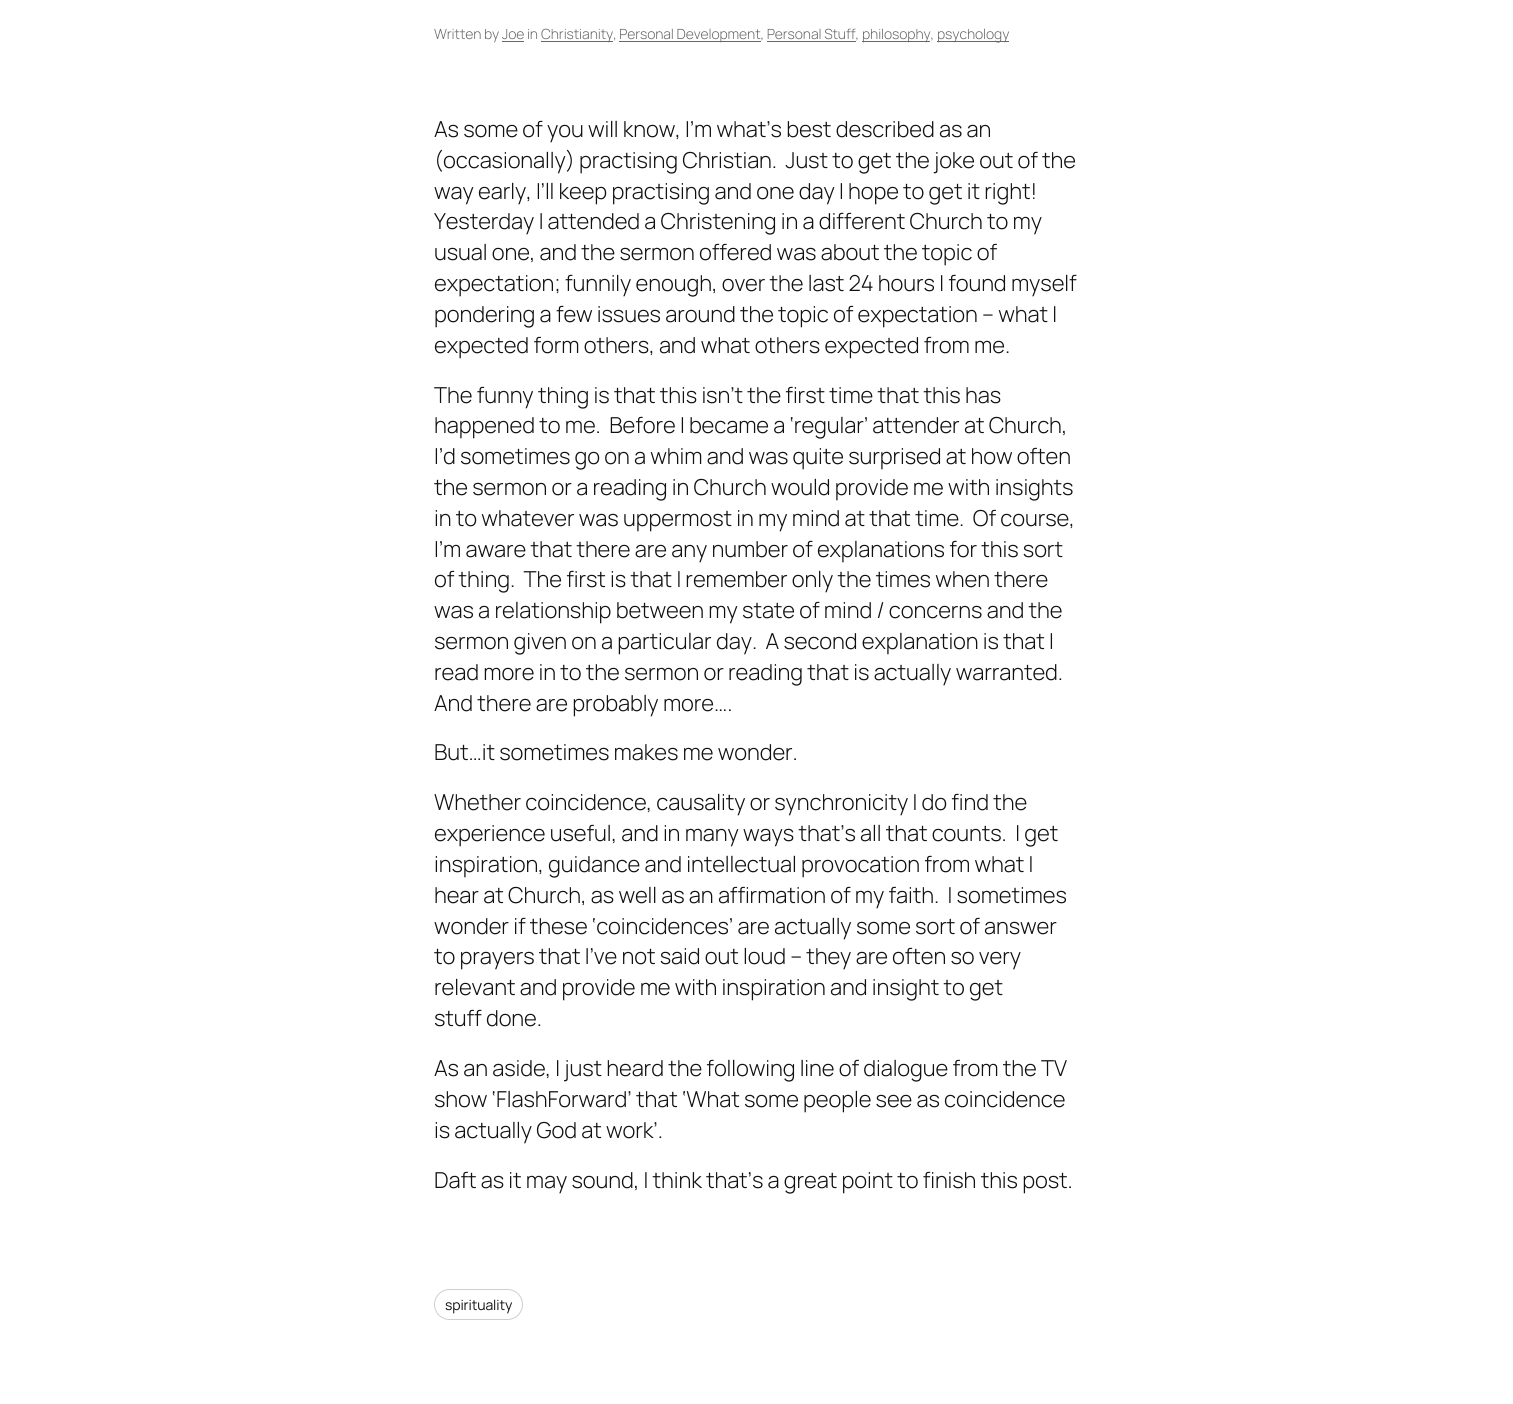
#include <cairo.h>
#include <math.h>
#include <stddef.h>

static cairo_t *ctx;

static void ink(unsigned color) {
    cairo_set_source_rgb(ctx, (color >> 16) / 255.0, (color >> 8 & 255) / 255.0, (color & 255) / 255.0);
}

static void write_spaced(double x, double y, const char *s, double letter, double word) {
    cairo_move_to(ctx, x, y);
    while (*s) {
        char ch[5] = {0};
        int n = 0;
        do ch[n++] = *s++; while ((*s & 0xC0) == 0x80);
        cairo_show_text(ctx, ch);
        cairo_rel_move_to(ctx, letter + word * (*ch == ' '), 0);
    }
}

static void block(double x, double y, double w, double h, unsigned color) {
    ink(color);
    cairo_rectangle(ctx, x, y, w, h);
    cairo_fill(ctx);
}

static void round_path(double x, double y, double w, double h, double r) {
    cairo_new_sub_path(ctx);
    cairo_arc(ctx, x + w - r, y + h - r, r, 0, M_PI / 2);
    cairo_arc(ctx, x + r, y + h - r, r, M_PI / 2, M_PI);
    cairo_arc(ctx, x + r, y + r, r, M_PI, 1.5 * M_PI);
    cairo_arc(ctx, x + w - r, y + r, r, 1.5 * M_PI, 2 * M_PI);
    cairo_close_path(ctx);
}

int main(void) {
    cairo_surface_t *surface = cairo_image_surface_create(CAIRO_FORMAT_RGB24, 1513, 1404);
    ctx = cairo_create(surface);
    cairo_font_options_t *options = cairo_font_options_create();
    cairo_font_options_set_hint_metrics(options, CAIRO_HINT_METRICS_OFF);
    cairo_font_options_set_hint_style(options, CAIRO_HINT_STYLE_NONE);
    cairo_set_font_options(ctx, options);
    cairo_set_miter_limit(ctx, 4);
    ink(0xffffff);
    cairo_paint(ctx);
    cairo_select_font_face(ctx, "Manrope Light", CAIRO_FONT_SLANT_NORMAL, CAIRO_FONT_WEIGHT_NORMAL);
    cairo_set_font_size(ctx, 14);
    ink(0x686868);
    write_spaced(434, 39, "Written by Joe in", -0.1, 0);
    block(541, 41, 72, 1, 0x686868);
    write_spaced(541, 39, "Christianity,", -0.1, 0);
    block(619, 41, 142, 1, 0x686868);
    write_spaced(619, 39, "Personal Development, Personal Stuff,", -0.1, 0);
    block(862, 41, 68, 1, 0x686868);
    write_spaced(862, 39, "philosophy,", -0.1, 0);
    block(937, 41, 72, 1, 0x686868);
    write_spaced(937, 39, "psychology", -0.1, 0);
    block(767, 41, 89, 1, 0x686868);
    block(502, 41, 22, 1, 0x686868);
    cairo_set_font_size(ctx, 22);
    ink(0x111111);
    write_spaced(434, 137, "As some of you will know, I’m what’s best described as an", -0.1, 0);
    write_spaced(434, 168, "(occasionally) practising Christian.  Just to get the joke out of the", -0.1, 0);
    write_spaced(434, 199, "way early, I’ll keep practising and one day I hope to get it right!", -0.1, 0);
    write_spaced(434, 229, "Yesterday I attended a Christening in a different Church to my", -0.1, 0);
    write_spaced(434, 260, "usual one, and the sermon offered was about the topic of", -0.1, 0);
    write_spaced(434, 291, "expectation; funnily enough, over the last 24 hours I found myself", -0.1, 0);
    write_spaced(434, 322, "pondering a few issues around the topic of expectation – what I", -0.1, 0);
    write_spaced(434, 353, "expected form others, and what others expected from me.", -0.1, 0);
    write_spaced(434, 403, "The funny thing is that this isn’t the first time that this has", -0.1, 0);
    write_spaced(434, 433, "happened to me.  Before I became a ‘regular’ attender at Church,", -0.1, 0);
    write_spaced(434, 464, "I’d sometimes go on a whim and was quite surprised at how often", -0.1, 0);
    write_spaced(434, 495, "the sermon or a reading in Church would provide me with insights", -0.1, 0);
    write_spaced(434, 526, "in to whatever was uppermost in my mind at that time.  Of course,", -0.1, 0);
    write_spaced(434, 557, "I’m aware that there are any number of explanations for this sort", -0.1, 0);
    write_spaced(434, 587, "of thing.  The first is that I remember only the times when there", -0.1, 0);
    write_spaced(434, 618, "was a relationship between my state of mind / concerns and the", -0.1, 0);
    write_spaced(434, 649, "sermon given on a particular day.  A second explanation is that I", -0.1, 0);
    write_spaced(434, 680, "read more in to the sermon or reading that is actually warranted.", -0.1, 0);
    write_spaced(434, 711, "And there are probably more….", -0.1, 0);
    write_spaced(434, 760, "But…it sometimes makes me wonder.", -0.1, 0);
    write_spaced(434, 810, "Whether coincidence, causality or synchronicity I do find the", -0.1, 0);
    write_spaced(434, 841, "experience useful, and in many ways that’s all that counts.  I get", -0.1, 0);
    write_spaced(434, 872, "inspiration, guidance and intellectual provocation from what I", -0.1, 0);
    write_spaced(434, 903, "hear at Church, as well as an affirmation of my faith.  I sometimes", -0.1, 0);
    write_spaced(434, 934, "wonder if these ‘coincidences’ are actually some sort of answer", -0.1, 0);
    write_spaced(434, 964, "to prayers that I’ve not said out loud – they are often so very", -0.1, 0);
    write_spaced(434, 995, "relevant and provide me with inspiration and insight to get", -0.1, 0);
    write_spaced(434, 1026, "stuff done.", -0.1, 0);
    write_spaced(434, 1076, "As an aside, I just heard the following line of dialogue from the TV", -0.1, 0);
    write_spaced(434, 1107, "show ‘FlashForward’ that ‘What some people see as coincidence", -0.1, 0);
    write_spaced(434, 1138, "is actually God at work’.", -0.1, 0);
    write_spaced(434, 1188, "Daft as it may sound, I think that’s a great point to finish this post.", -0.1, 0);
    round_path(434.5, 1289.5, 88, 30, 15);
    ink(0xcfcfcf);
    cairo_set_line_width(ctx, 1);
    cairo_stroke(ctx);
    cairo_select_font_face(ctx, "Manrope", CAIRO_FONT_SLANT_NORMAL, CAIRO_FONT_WEIGHT_NORMAL);
    cairo_set_font_size(ctx, 14);
    ink(0x111111);
    write_spaced(445, 1310, "spirituality", -0.1, 0);
    cairo_surface_write_to_png(surface, "screenshot.png");
    cairo_font_options_destroy(options);
    cairo_destroy(ctx);
    cairo_surface_destroy(surface);
    return 0;
}
